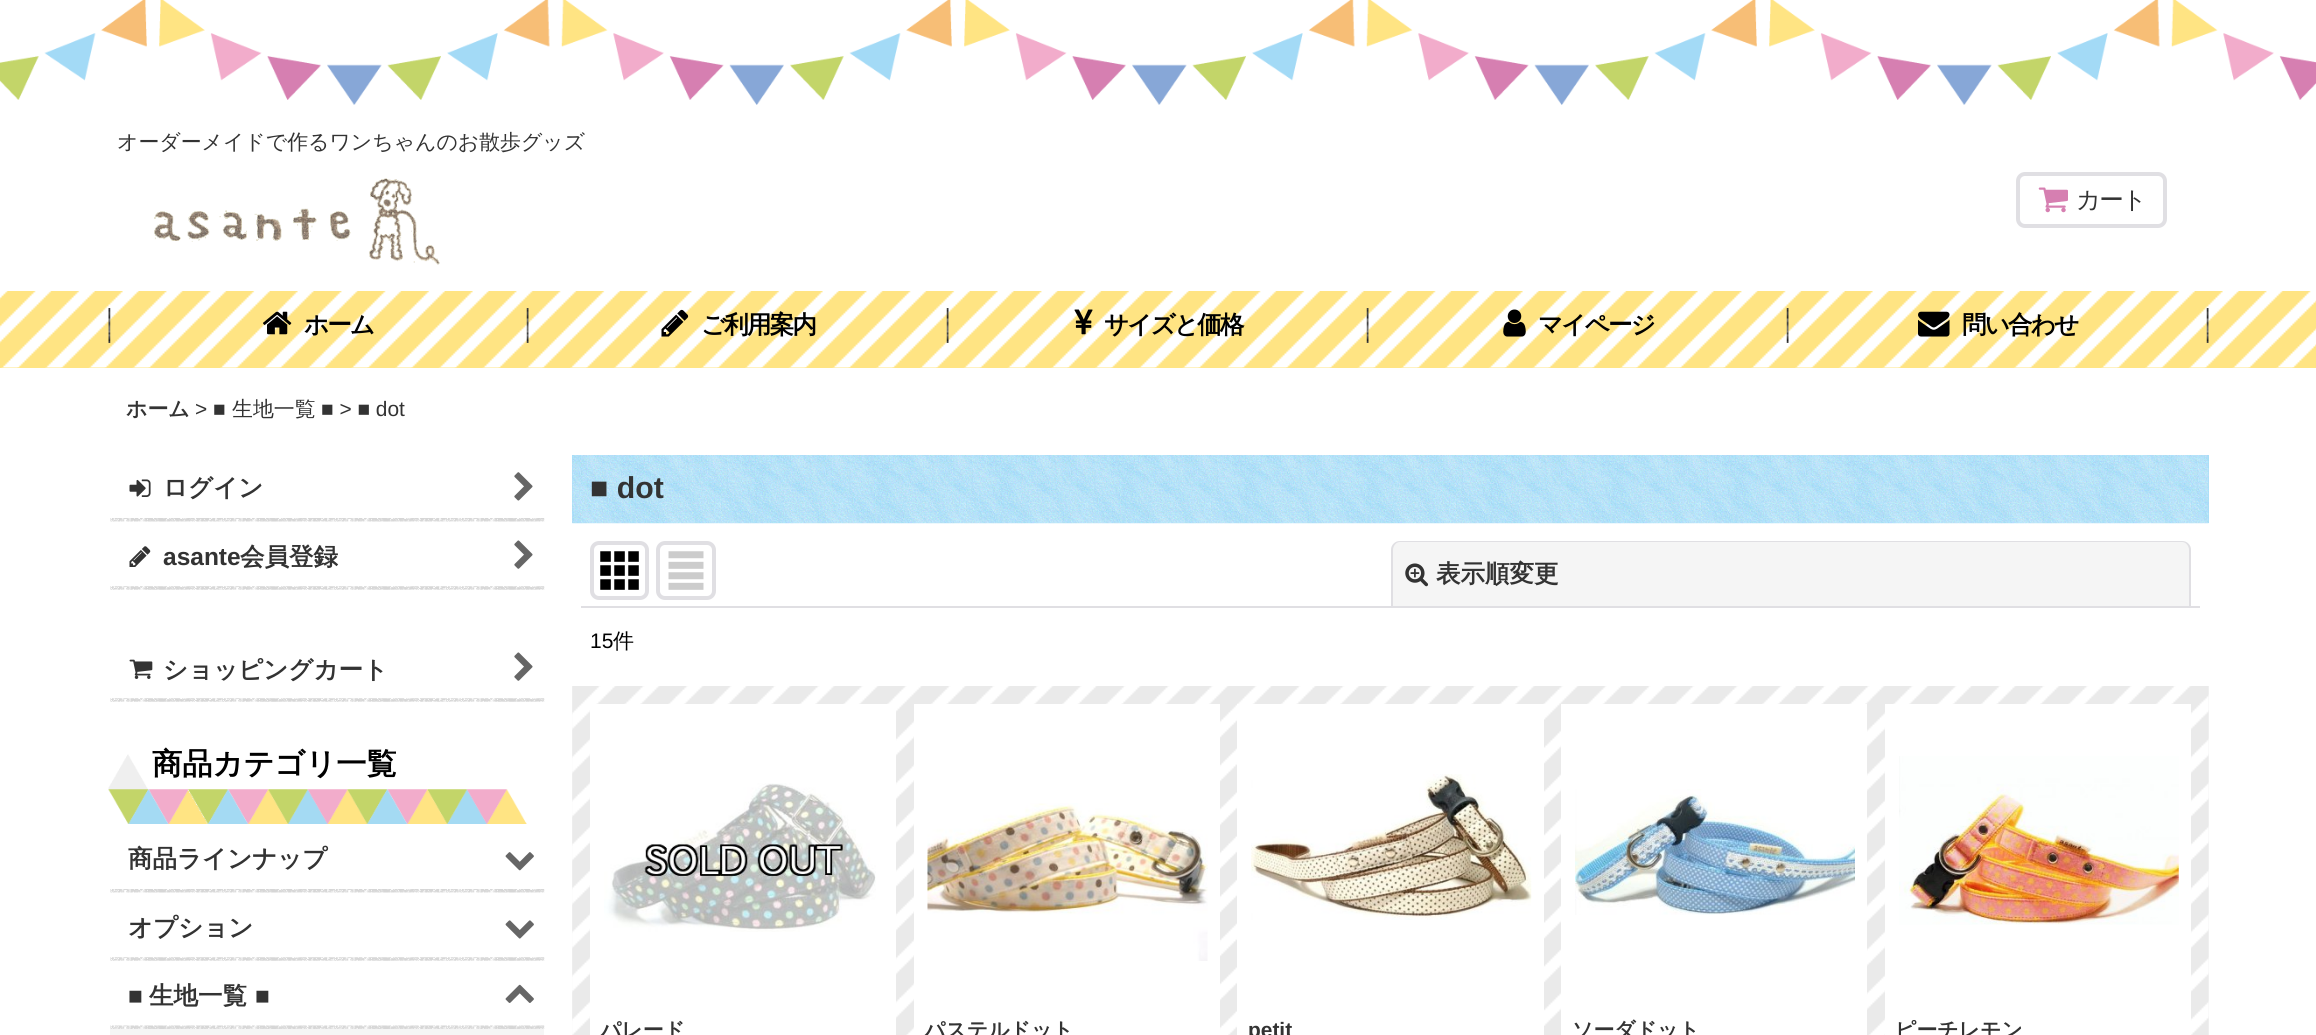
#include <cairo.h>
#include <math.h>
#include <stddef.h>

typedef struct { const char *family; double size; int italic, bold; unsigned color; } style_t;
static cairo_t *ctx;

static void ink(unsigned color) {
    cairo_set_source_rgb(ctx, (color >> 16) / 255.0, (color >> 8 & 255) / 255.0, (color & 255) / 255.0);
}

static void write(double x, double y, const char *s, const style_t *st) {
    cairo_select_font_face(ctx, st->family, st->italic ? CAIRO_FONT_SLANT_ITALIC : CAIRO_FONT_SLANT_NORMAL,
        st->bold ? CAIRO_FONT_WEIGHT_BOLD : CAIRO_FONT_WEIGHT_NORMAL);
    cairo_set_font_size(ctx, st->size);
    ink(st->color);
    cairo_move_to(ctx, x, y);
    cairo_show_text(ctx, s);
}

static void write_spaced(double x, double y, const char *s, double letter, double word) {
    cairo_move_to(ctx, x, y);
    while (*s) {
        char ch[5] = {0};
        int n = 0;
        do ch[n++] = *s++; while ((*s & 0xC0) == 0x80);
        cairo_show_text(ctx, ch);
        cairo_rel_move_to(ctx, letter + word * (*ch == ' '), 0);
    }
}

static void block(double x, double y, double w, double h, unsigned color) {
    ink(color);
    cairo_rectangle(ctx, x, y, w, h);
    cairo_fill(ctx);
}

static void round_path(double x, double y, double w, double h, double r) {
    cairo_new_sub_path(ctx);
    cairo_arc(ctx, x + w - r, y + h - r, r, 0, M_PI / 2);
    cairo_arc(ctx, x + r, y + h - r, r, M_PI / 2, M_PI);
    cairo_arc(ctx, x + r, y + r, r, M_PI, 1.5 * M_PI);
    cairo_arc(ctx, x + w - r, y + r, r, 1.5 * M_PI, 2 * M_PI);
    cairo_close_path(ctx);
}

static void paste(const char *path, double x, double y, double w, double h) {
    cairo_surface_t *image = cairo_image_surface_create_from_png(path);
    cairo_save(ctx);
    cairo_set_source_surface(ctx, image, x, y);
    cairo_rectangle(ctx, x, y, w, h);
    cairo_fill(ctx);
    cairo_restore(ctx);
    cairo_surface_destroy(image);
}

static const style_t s1 = {"WenQuanYi Zen Hei Medium", 20.9, 0, 0, 0x333333};
static const style_t s2 = {"WenQuanYi Zen Hei", 20.9, 0, 1, 0x333333};
static const style_t s3 = {"Liberation Sans", 20.9, 0, 0, 0x333333};
static const style_t s4 = {"WenQuanYi Zen Hei", 24.5, 0, 1, 0x333333};
static const style_t s5 = {"Liberation Sans", 24.5, 0, 1, 0x333333};
static const style_t s6 = {"WenQuanYi Zen Hei", 30.25, 0, 1, 0x000000};
static const style_t s7 = {"Liberation Sans", 30.25, 0, 1, 0x333333};
static const style_t s8 = {"Liberation Sans", 21, 0, 0, 0x000000};
static const style_t s9 = {"WenQuanYi Zen Hei Medium", 21, 0, 0, 0x000000};
static const style_t s10 = {"Liberation Sans", 20.9, 0, 1, 0x333333};

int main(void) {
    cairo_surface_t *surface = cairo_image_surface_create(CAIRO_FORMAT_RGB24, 2316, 1035);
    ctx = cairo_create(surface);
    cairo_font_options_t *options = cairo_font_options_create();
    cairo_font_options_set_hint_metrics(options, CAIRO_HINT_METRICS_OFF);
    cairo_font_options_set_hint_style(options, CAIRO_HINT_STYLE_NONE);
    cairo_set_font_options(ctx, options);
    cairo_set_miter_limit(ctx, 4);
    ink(0xffffff);
    cairo_paint(ctx);
    paste("pic1.png", 0, 0, 2316, 105);
    write(117, 149, "オーダーメイドで作るワンちゃんのお散歩グッズ", &s1);
    paste("pic2.png", 154, 178, 286, 87);
    round_path(2018, 174, 147, 52, 7);
    ink(0xe0dfe3);
    cairo_set_line_width(ctx, 4);
    cairo_stroke(ctx);
    paste("pic3.png", 2038, 187, 30, 26);
    cairo_set_font_size(ctx, 24.5);
    ink(0x333333);
    write_spaced(2076, 208, "カート", -1.75, 0);
    block(0, 367, 2316, 1, 0xffe483);
    paste("pic4.png", 0, 291, 2316, 77);
    paste("pic5.png", 108, 308, 421, 35);
    paste("pic6.png", 263, 311, 29, 24);
    cairo_select_font_face(ctx, "WenQuanYi Zen Hei", CAIRO_FONT_SLANT_NORMAL, CAIRO_FONT_WEIGHT_BOLD);
    ink(0x000000);
    write_spaced(304, 333, "ホーム", -1.75, 0);
    paste("pic7.png", 946, 308, 3, 35);
    paste("pic8.png", 661, 309, 28, 28);
    write_spaced(701, 333, "ご利用案内", -1.75, 0);
    paste("pic9.png", 1366, 308, 3, 35);
    paste("pic10.png", 1074, 309, 19, 26);
    write_spaced(1104, 333, "サイズと価格", -1.75, 0);
    paste("pic11.png", 1786, 308, 3, 35);
    paste("pic12.png", 1503, 309, 23, 28);
    write_spaced(1538, 333, "マイページ", -1.75, 0);
    paste("pic13.png", 2206, 308, 3, 35);
    paste("pic14.png", 1918, 311, 32, 26);
    write_spaced(1962, 333, "問い合わせ", -1.75, 0);
    write(126, 416, "ホーム", &s2);
    write(195, 416, "> ■", &s3);
    write(232, 416, "生地一覧", &s1);
    write(321, 416, "■ > ■ dot", &s3);
    paste("pic15.png", 110, 518, 435, 4);
    paste("pic16.png", 129, 479, 22, 18);
    write(163, 496, "ログイン", &s4);
    paste("pic17.png", 514, 472, 19, 29);
    paste("pic18.png", 110, 586, 435, 4);
    paste("pic19.png", 129, 546, 22, 21);
    write(163, 565, "asante", &s5);
    write(240, 565, "会員登録", &s4);
    paste("pic20.png", 514, 540, 19, 29);
    paste("pic21.png", 110, 698, 435, 4);
    paste("pic22.png", 129, 659, 24, 20);
    write(163, 678, "ショッピングカート", &s4);
    paste("pic20.png", 514, 652, 19, 29);
    paste("pic23.png", 108, 754, 419, 70);
    write(152, 774, "商品カテゴリ一覧", &s6);
    paste("pic24.png", 110, 889, 435, 4);
    write(128, 867, "商品ラインナップ", &s4);
    paste("pic25.png", 505, 852, 29, 19);
    paste("pic26.png", 110, 957, 435, 4);
    write(128, 936, "オプション", &s4);
    paste("pic27.png", 505, 920, 29, 19);
    paste("pic28.png", 110, 1025, 435, 4);
    write(128, 1004, "■", &s5);
    write(149, 1004, "生地一覧", &s4);
    write(255, 1004, "■", &s5);
    paste("pic29.png", 505, 984, 29, 19);
    block(110, 1029, 434, 6, 0xf5f5f5);
    block(572, 455, 1637, 68, 0xa3daf6);
    paste("pic30.png", 572, 455, 1637, 69);
    write(590, 498, "■ dot", &s7);
    block(581, 606, 1619, 2, 0xe0dfe3);
    round_path(592, 543, 55, 55, 7);
    cairo_stroke(ctx);
    paste("pic31.png", 600, 551, 39, 39);
    round_path(658, 543, 56, 55, 7);
    cairo_stroke(ctx);
    paste("pic32.png", 668, 551, 36, 39);
    ink(0xf5f5f5);
    cairo_new_path(ctx);
    cairo_move_to(ctx, 1400, 541);
    cairo_line_to(ctx, 2182, 541);
    cairo_curve_to(ctx, 2187, 541, 2191, 545, 2191, 550);
    cairo_line_to(ctx, 2191, 606);
    cairo_line_to(ctx, 1391, 606);
    cairo_line_to(ctx, 1391, 550);
    cairo_curve_to(ctx, 1391, 545, 1395, 541, 1400, 541);
    cairo_close_path(ctx);
    cairo_fill(ctx);
    ink(0xe0dfe3);
    cairo_set_fill_rule(ctx, CAIRO_FILL_RULE_EVEN_ODD);
    cairo_new_path(ctx);
    cairo_move_to(ctx, 1400, 541);
    cairo_line_to(ctx, 2182, 541);
    cairo_curve_to(ctx, 2187, 541, 2191, 545, 2191, 550);
    cairo_line_to(ctx, 2191, 606);
    cairo_line_to(ctx, 1391, 606);
    cairo_line_to(ctx, 1391, 550);
    cairo_curve_to(ctx, 1391, 545, 1395, 541, 1400, 541);
    cairo_close_path(ctx);
    cairo_move_to(ctx, 1400, 542);
    cairo_line_to(ctx, 2182, 542);
    cairo_curve_to(ctx, 2186, 542, 2189, 546, 2189, 550);
    cairo_line_to(ctx, 2189, 606);
    cairo_line_to(ctx, 1393, 606);
    cairo_line_to(ctx, 1393, 550);
    cairo_curve_to(ctx, 1393, 546, 1396, 542, 1400, 542);
    cairo_close_path(ctx);
    cairo_fill(ctx);
    paste("pic33.png", 1405, 563, 24, 24);
    write(1436, 582, "表示順変更", &s4);
    write(590, 648, "15", &s8);
    write(613, 648, "件", &s9);
    block(572, 686, 1637, 349, 0xf5f5f5);
    paste("pic34.png", 572, 686, 1637, 349);
    block(590, 704, 306, 331, 0xffffff);
    paste("pic35.png", 604, 783, 272, 149);
    write(600, 1037, "パレード", &s2);
    block(914, 704, 306, 331, 0xffffff);
    paste("pic36.png", 927, 803, 281, 158);
    write(924, 1037, "パステルドット", &s2);
    block(1237, 704, 307, 331, 0xffffff);
    paste("pic37.png", 1251, 774, 281, 146);
    write(1248, 1037, "petit", &s10);
    block(1561, 704, 306, 331, 0xffffff);
    paste("pic38.png", 1575, 789, 280, 126);
    write(1572, 1037, "ソーダドット", &s2);
    block(1885, 704, 306, 331, 0xffffff);
    paste("pic39.png", 1899, 756, 280, 169);
    write(1895, 1037, "ピーチレモン", &s2);
    cairo_surface_write_to_png(surface, "screenshot.png");
    cairo_font_options_destroy(options);
    cairo_destroy(ctx);
    cairo_surface_destroy(surface);
    return 0;
}
